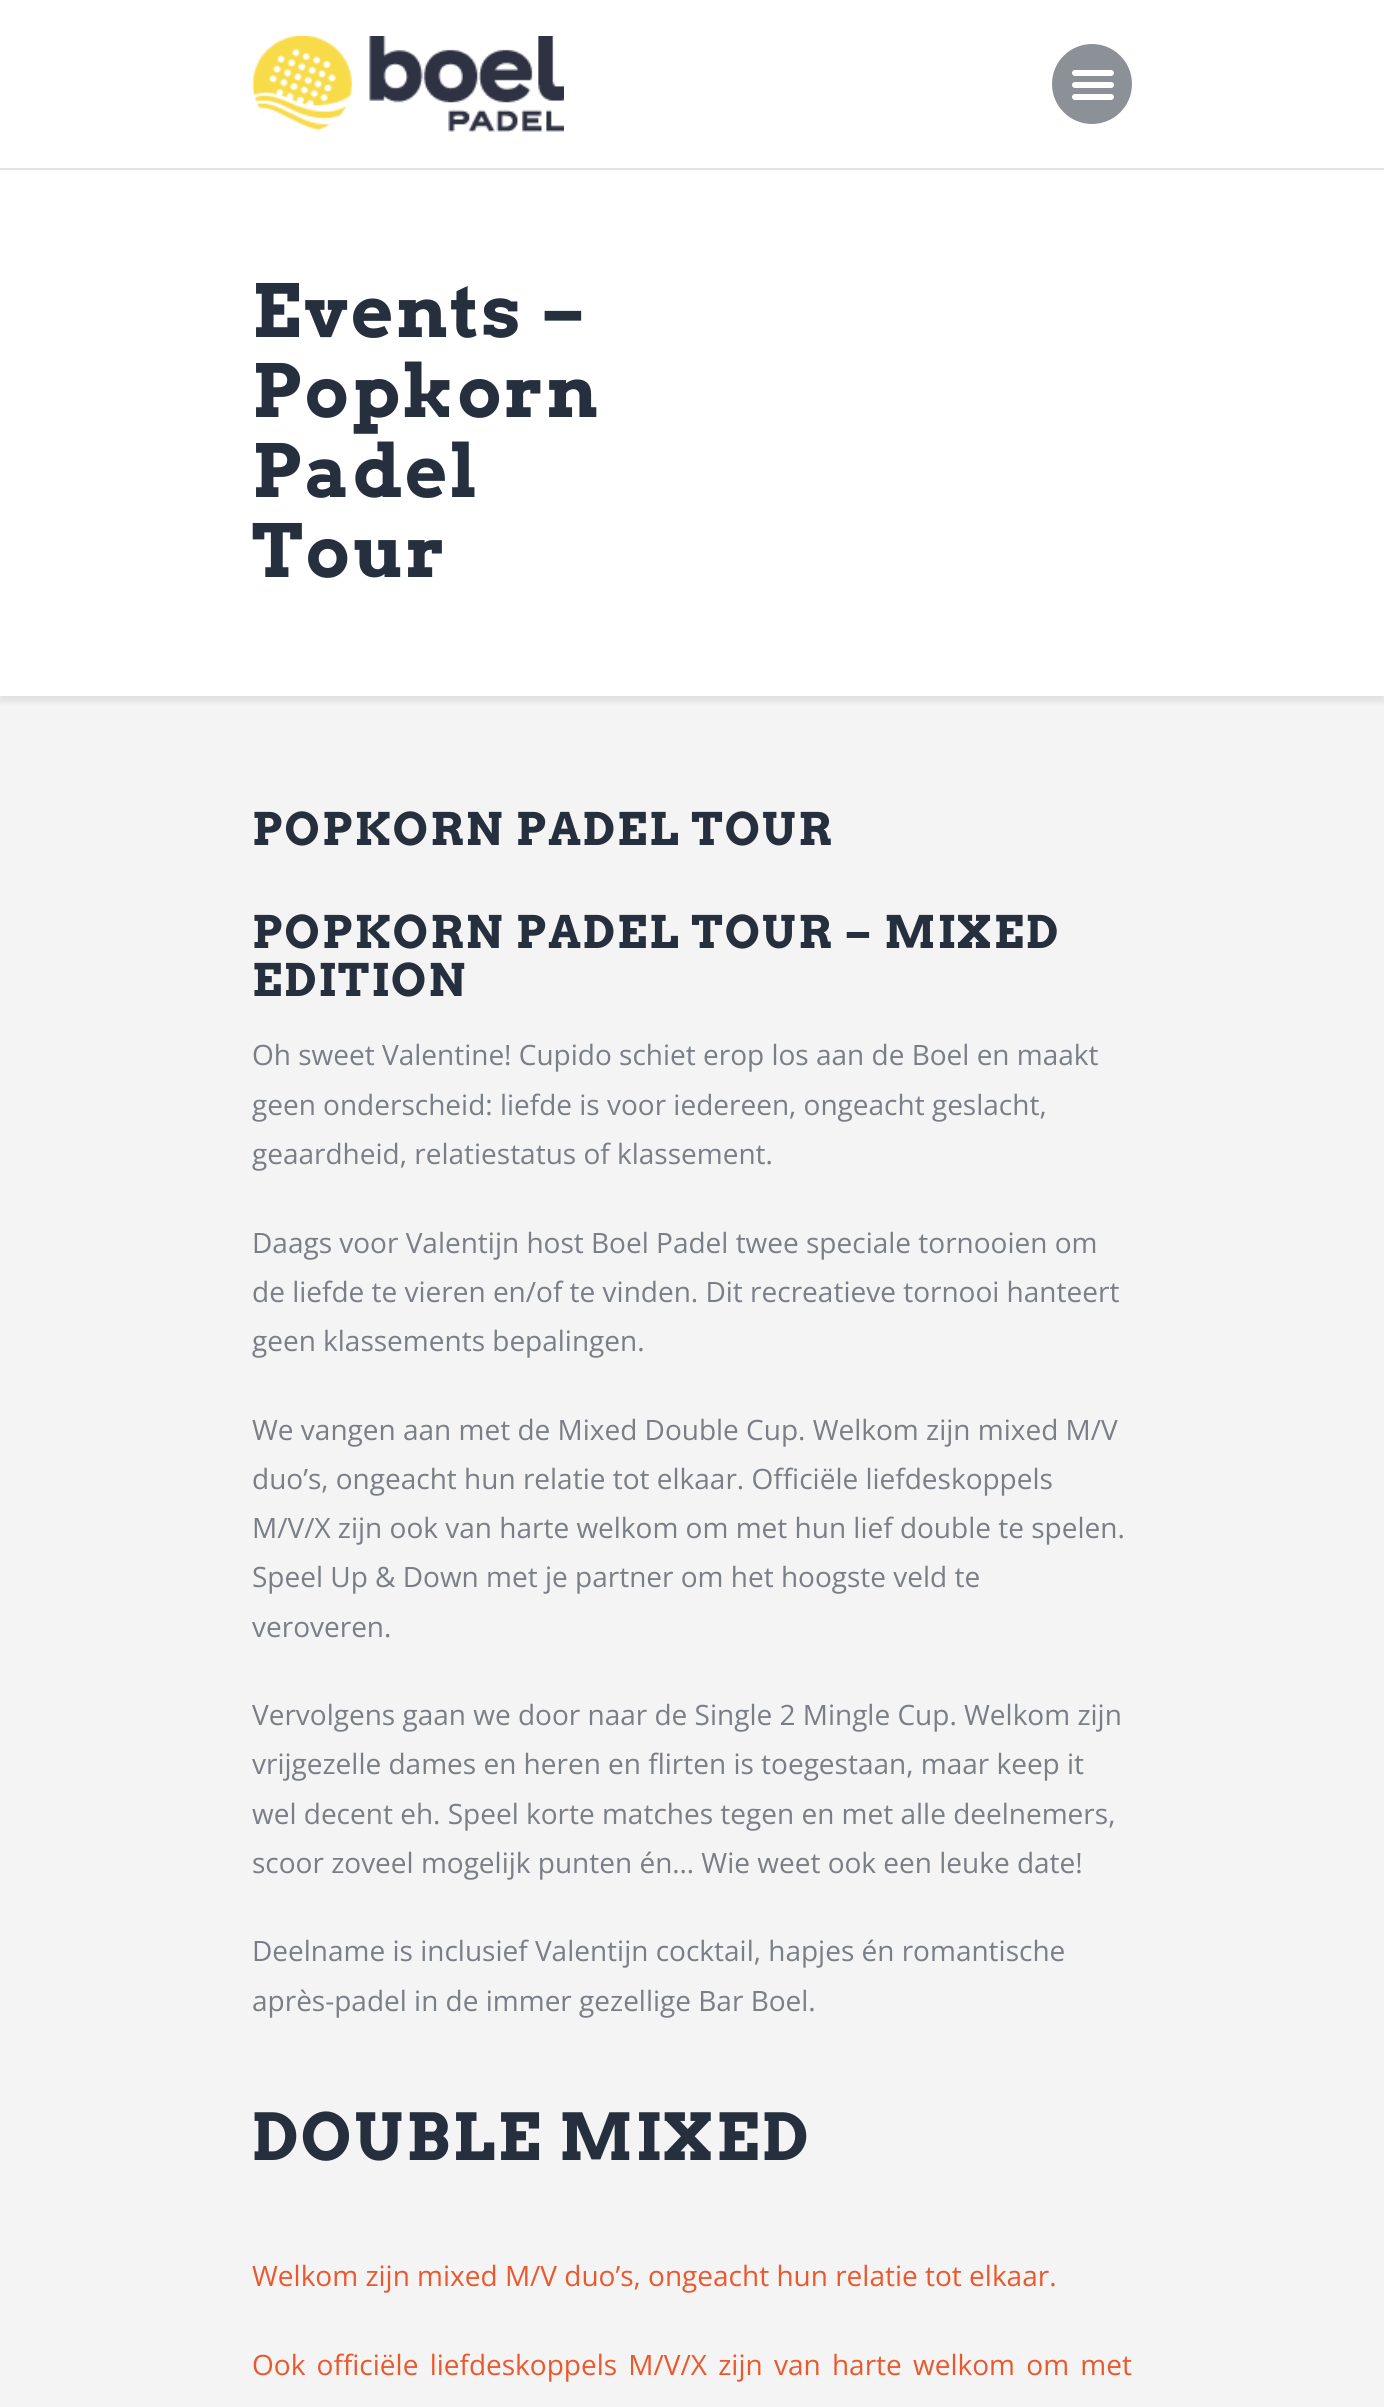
#include <cairo.h>
#include <math.h>
#include <stddef.h>

typedef struct { const char *family; double size; int italic, bold; unsigned color; } style_t;
static cairo_t *ctx;

static void ink(unsigned color) {
    cairo_set_source_rgb(ctx, (color >> 16) / 255.0, (color >> 8 & 255) / 255.0, (color & 255) / 255.0);
}

static void write(double x, double y, const char *s, const style_t *st) {
    cairo_select_font_face(ctx, st->family, st->italic ? CAIRO_FONT_SLANT_ITALIC : CAIRO_FONT_SLANT_NORMAL,
        st->bold ? CAIRO_FONT_WEIGHT_BOLD : CAIRO_FONT_WEIGHT_NORMAL);
    cairo_set_font_size(ctx, st->size);
    ink(st->color);
    cairo_move_to(ctx, x, y);
    cairo_show_text(ctx, s);
}

static void write_spaced(double x, double y, const char *s, double letter, double word) {
    cairo_move_to(ctx, x, y);
    while (*s) {
        char ch[5] = {0};
        int n = 0;
        do ch[n++] = *s++; while ((*s & 0xC0) == 0x80);
        cairo_show_text(ctx, ch);
        cairo_rel_move_to(ctx, letter + word * (*ch == ' '), 0);
    }
}

static void block(double x, double y, double w, double h, unsigned color) {
    ink(color);
    cairo_rectangle(ctx, x, y, w, h);
    cairo_fill(ctx);
}

static void round_path(double x, double y, double w, double h, double r) {
    cairo_new_sub_path(ctx);
    cairo_arc(ctx, x + w - r, y + h - r, r, 0, M_PI / 2);
    cairo_arc(ctx, x + r, y + h - r, r, M_PI / 2, M_PI);
    cairo_arc(ctx, x + r, y + r, r, M_PI, 1.5 * M_PI);
    cairo_arc(ctx, x + w - r, y + r, r, 1.5 * M_PI, 2 * M_PI);
    cairo_close_path(ctx);
}

static void blur_box(double x, double y, double w, double h, double r, double blur, double alpha) {
    cairo_push_group_with_content(ctx, CAIRO_CONTENT_ALPHA);
    cairo_set_operator(ctx, CAIRO_OPERATOR_SOURCE);
    for (int i = 15; i >= -15 && fmin(w, h) + blur * i / 3 > 0; i -= 2) {
        double e = blur * i / 6;
        cairo_set_source_rgba(ctx, 0, 0, 0, alpha * erfc((i - 1) / 8.5) / 2);
        round_path(x - e, y - e, w + 2 * e, h + 2 * e, fmax(0, fmin(r + e + blur * .6, fmin(w, h) / 2 + e)));
        cairo_fill(ctx);
    }
    cairo_pattern_t *soft = cairo_pop_group(ctx);
    cairo_mask(ctx, soft);
    cairo_pattern_destroy(soft);
}

static void paste(const char *path, double x, double y, double w, double h) {
    cairo_surface_t *image = cairo_image_surface_create_from_png(path);
    cairo_save(ctx);
    cairo_set_source_surface(ctx, image, x, y);
    cairo_rectangle(ctx, x, y, w, h);
    cairo_fill(ctx);
    cairo_restore(ctx);
    cairo_surface_destroy(image);
}

static const style_t s1 = {"Open Sans", 28, 0, 0, 0x797e87};
static const style_t s2 = {"Open Sans", 28, 0, 0, 0xea592e};

int main(void) {
    cairo_surface_t *surface = cairo_image_surface_create(CAIRO_FORMAT_RGB24, 1384, 2407);
    ctx = cairo_create(surface);
    cairo_font_options_t *options = cairo_font_options_create();
    cairo_font_options_set_hint_metrics(options, CAIRO_HINT_METRICS_OFF);
    cairo_font_options_set_hint_style(options, CAIRO_HINT_STYLE_NONE);
    cairo_set_font_options(ctx, options);
    cairo_set_miter_limit(ctx, 4);
    ink(0xf4f4f4);
    cairo_paint(ctx);
    ink(0x000000);
    blur_box(0, 6, 1384, 696, 0, 3, 0.08);
    block(0, 0, 1384, 696, 0xffffff);
    block(0, 168, 1384, 2, 0xe3e3e3);
    paste("pic1.png", 252, 36, 312, 96);
    ink(0x8c9097);
    cairo_arc(ctx, 1092, 84, 40, 0, 2 * M_PI);
    cairo_fill(ctx);
    paste("pic2.png", 1072, 70, 42, 30);
    cairo_select_font_face(ctx, "Arvo", CAIRO_FONT_SLANT_NORMAL, CAIRO_FONT_WEIGHT_BOLD);
    cairo_set_font_size(ctx, 73);
    ink(0x262f3e);
    write_spaced(252, 337, "Events –", 2.6, 0);
    write_spaced(252, 417, "Popkorn", 2.6, 0);
    write_spaced(252, 497, "Padel", 2.6, 0);
    write_spaced(252, 577, "Tour", 2.6, 0);
    cairo_set_font_size(ctx, 44.75);
    write_spaced(252, 845, "POPKORN PADEL TOUR", 2, 0);
    write_spaced(252, 948, "POPKORN PADEL TOUR – MIXED", 2, 0);
    write_spaced(252, 996, "EDITION", 2, 0);
    write(252, 1065, "Oh sweet Valentine! Cupido schiet erop los aan de Boel en maakt", &s1);
    write(252, 1115, "geen onderscheid: liefde is voor iedereen, ongeacht geslacht,", &s1);
    write(252, 1164, "geaardheid, relatiestatus of klassement.", &s1);
    write(252, 1253, "Daags voor Valentijn host Boel Padel twee speciale tornooien om", &s1);
    write(252, 1302, "de liefde te vieren en/of te vinden. Dit recreatieve tornooi hanteert", &s1);
    write(252, 1351, "geen klassements bepalingen.", &s1);
    write(252, 1440, "We vangen aan met de Mixed Double Cup. Welkom zijn mixed M/V", &s1);
    write(252, 1489, "duo’s, ongeacht hun relatie tot elkaar. Officiële liefdeskoppels", &s1);
    write(252, 1538, "M/V/X zijn ook van harte welkom om met hun lief double te spelen.", &s1);
    write(252, 1587, "Speel Up & Down met je partner om het hoogste veld te", &s1);
    write(252, 1637, "veroveren.", &s1);
    write(252, 1725, "Vervolgens gaan we door naar de Single 2 Mingle Cup. Welkom zijn", &s1);
    write(252, 1774, "vrijgezelle dames en heren en flirten is toegestaan, maar keep it", &s1);
    write(252, 1824, "wel decent eh. Speel korte matches tegen en met alle deelnemers,", &s1);
    write(252, 1873, "scoor zoveel mogelijk punten én… Wie weet ook een leuke date!", &s1);
    write(252, 1961, "Deelname is inclusief Valentijn cocktail, hapjes én romantische", &s1);
    write(252, 2011, "après-padel in de immer gezellige Bar Boel.", &s1);
    cairo_select_font_face(ctx, "Arvo", CAIRO_FONT_SLANT_NORMAL, CAIRO_FONT_WEIGHT_BOLD);
    cairo_set_font_size(ctx, 64.5);
    ink(0x262f3e);
    write_spaced(252, 2160, "DOUBLE MIXED", 2.6, 0);
    write(252, 2286, "Welkom zijn mixed M/V duo’s, ongeacht hun relatie tot elkaar.", &s2);
    write_spaced(252, 2375, "Ook officiële liefdeskoppels M/V/X zijn van harte welkom om met", 0, 4);
    cairo_surface_write_to_png(surface, "screenshot.png");
    cairo_font_options_destroy(options);
    cairo_destroy(ctx);
    cairo_surface_destroy(surface);
    return 0;
}
